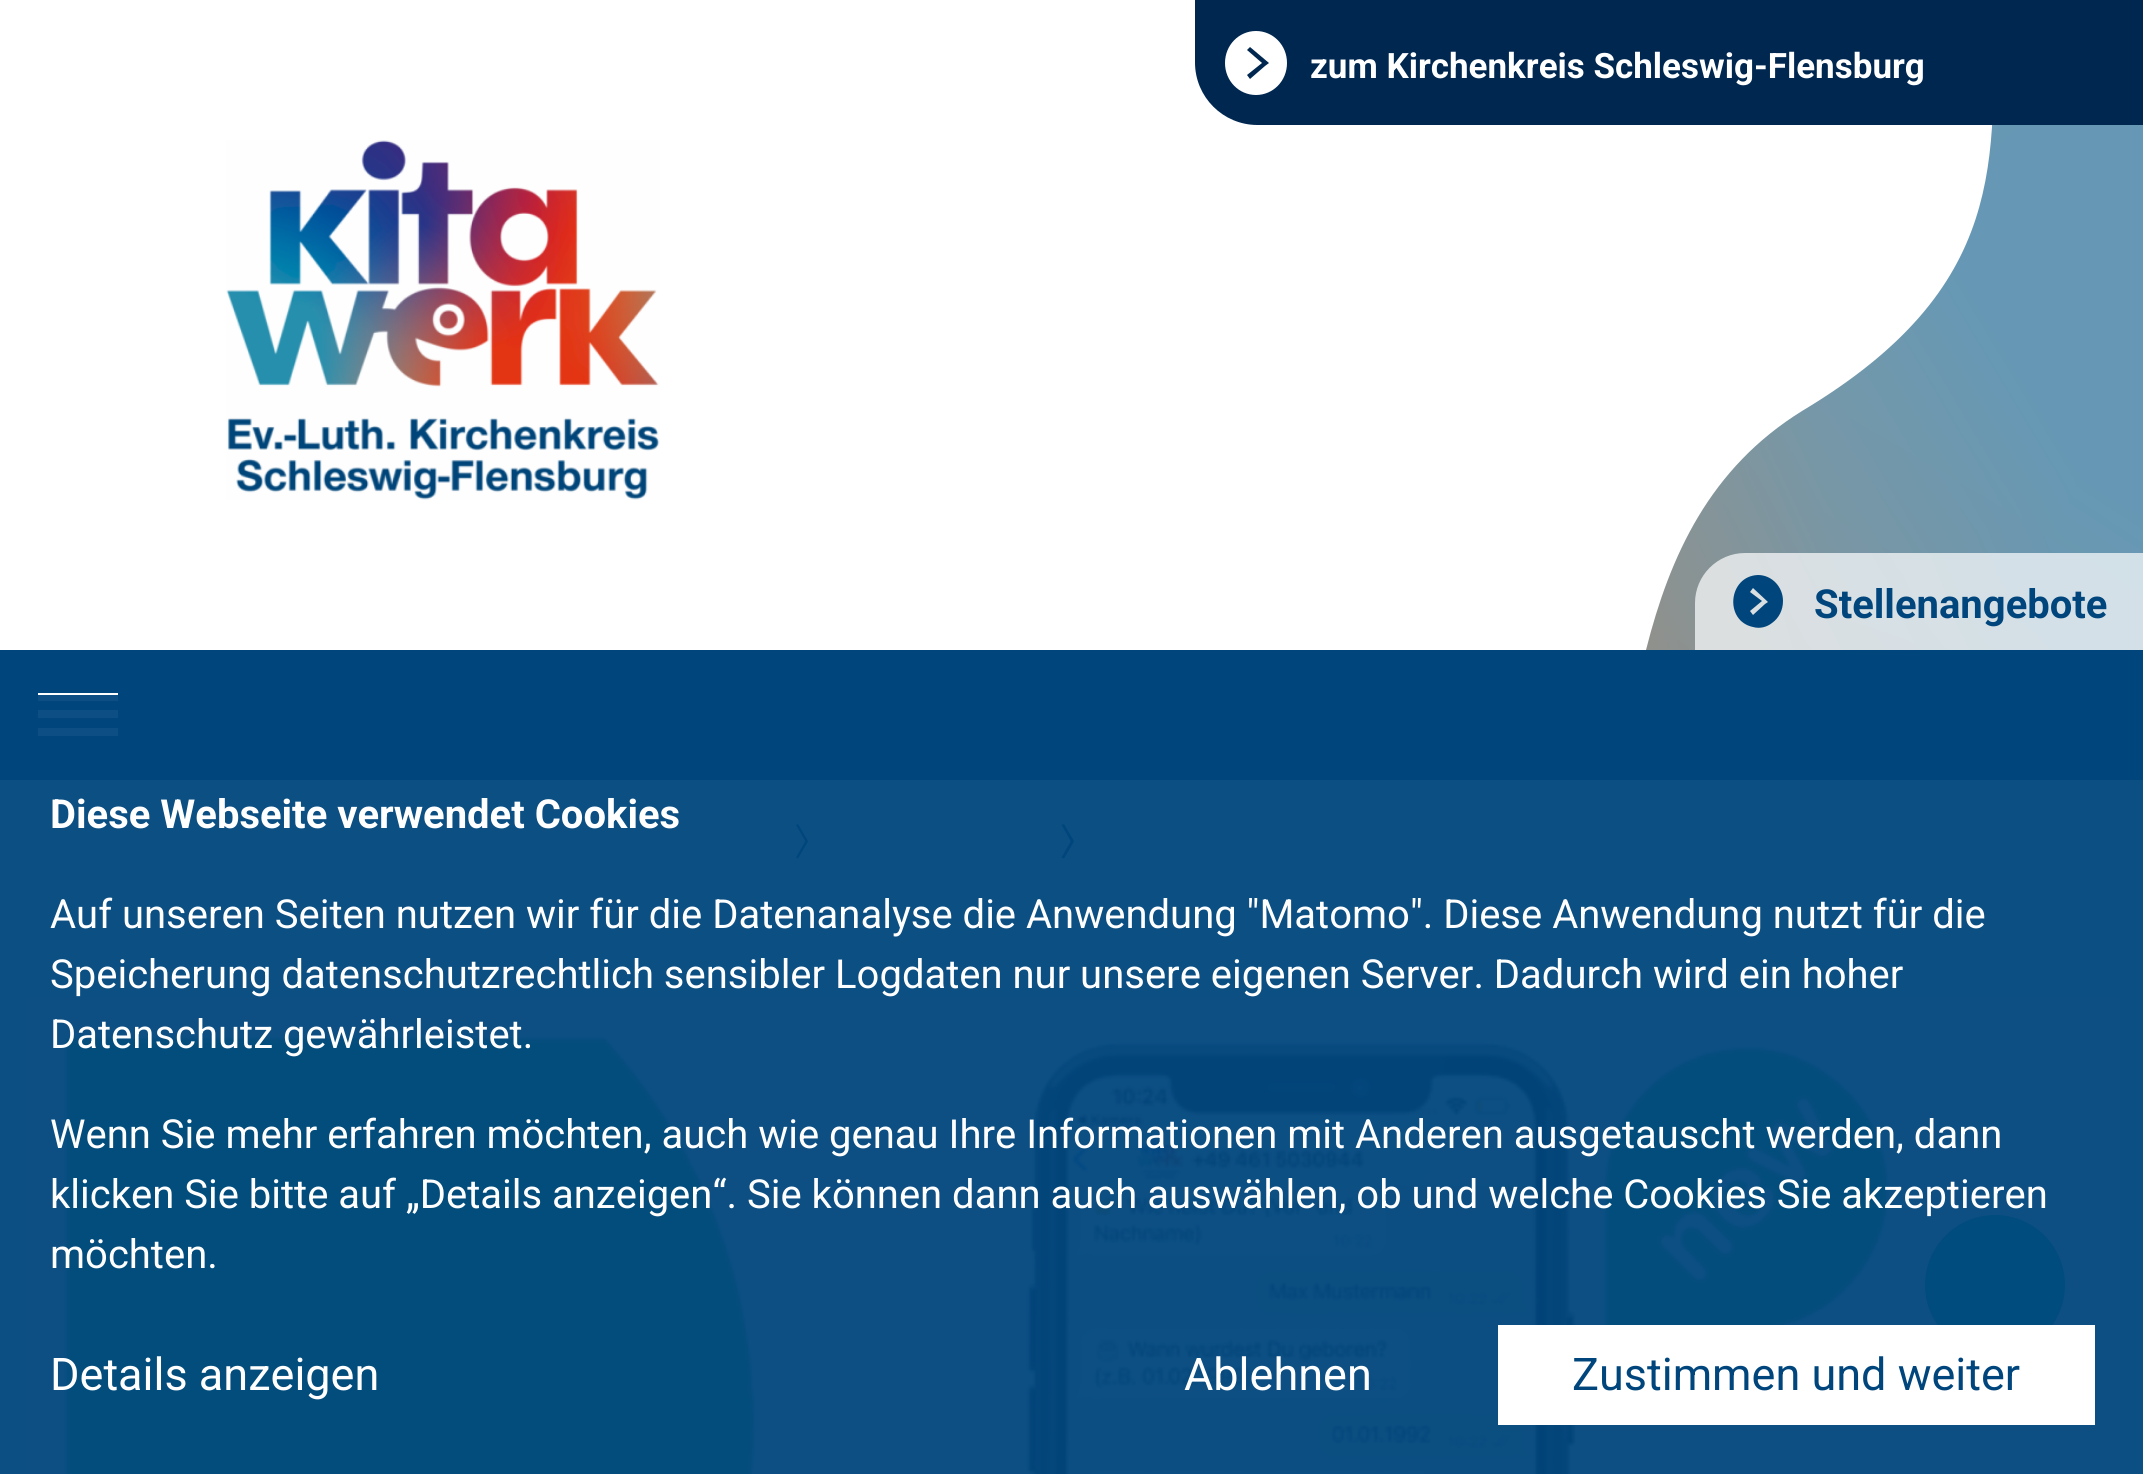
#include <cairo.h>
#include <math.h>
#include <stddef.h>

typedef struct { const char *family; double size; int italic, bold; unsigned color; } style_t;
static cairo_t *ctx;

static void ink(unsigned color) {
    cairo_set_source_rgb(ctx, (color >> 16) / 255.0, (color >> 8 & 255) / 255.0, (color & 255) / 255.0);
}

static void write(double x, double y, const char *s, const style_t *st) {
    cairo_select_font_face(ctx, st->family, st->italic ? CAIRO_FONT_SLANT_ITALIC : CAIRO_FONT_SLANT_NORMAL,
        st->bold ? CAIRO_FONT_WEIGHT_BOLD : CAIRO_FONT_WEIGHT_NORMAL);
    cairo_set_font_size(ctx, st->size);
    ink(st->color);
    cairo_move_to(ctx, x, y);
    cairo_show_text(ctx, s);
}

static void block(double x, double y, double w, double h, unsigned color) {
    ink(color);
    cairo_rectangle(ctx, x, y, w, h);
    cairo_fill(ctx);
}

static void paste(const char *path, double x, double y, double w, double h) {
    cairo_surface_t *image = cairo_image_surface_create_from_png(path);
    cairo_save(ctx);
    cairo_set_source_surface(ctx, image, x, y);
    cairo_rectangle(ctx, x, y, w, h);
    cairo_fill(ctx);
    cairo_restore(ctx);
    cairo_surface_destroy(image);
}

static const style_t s1 = {"Roboto", 35, 0, 1, 0xffffff};
static const style_t s2 = {"Roboto", 40, 0, 1, 0x00467d};
static const style_t s3 = {"Roboto", 40, 0, 1, 0xffffff};
static const style_t s4 = {"Roboto", 40, 0, 0, 0xffffff};
static const style_t s5 = {"Roboto", 45, 0, 0, 0xffffff};
static const style_t s6 = {"Roboto", 45, 0, 0, 0x00467d};

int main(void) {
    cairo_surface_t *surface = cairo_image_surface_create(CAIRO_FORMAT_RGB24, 2143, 1474);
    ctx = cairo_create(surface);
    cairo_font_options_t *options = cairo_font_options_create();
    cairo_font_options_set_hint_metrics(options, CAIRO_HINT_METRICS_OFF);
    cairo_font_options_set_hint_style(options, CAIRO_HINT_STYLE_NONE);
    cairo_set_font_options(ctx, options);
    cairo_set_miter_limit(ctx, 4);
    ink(0x0c4f83);
    cairo_paint(ctx);
    paste("pic1.png", 1646, 125, 497, 525);
    ink(0xffffff);
    cairo_new_path(ctx);
    cairo_move_to(ctx, -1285, 0);
    cairo_line_to(ctx, -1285, 650);
    cairo_line_to(ctx, 1646, 650);
    cairo_curve_to(ctx, 1670, 555, 1710, 468, 1802, 411);
    cairo_curve_to(ctx, 2009, 287, 1994, 161, 1993, 0);
    cairo_close_path(ctx);
    cairo_fill(ctx);
    ink(0x002750);
    cairo_new_path(ctx);
    cairo_move_to(ctx, 1195, 0);
    cairo_line_to(ctx, 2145, 0);
    cairo_line_to(ctx, 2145, 125);
    cairo_line_to(ctx, 1257.5, 125);
    cairo_curve_to(ctx, 1223, 125, 1195, 97, 1195, 62.5);
    cairo_close_path(ctx);
    cairo_fill(ctx);
    ink(0xffffff);
    cairo_new_path(ctx);
    cairo_move_to(ctx, 1256, 31);
    cairo_curve_to(ctx, 1239, 31, 1225, 45, 1225, 63);
    cairo_curve_to(ctx, 1225, 81, 1239, 95, 1256, 95);
    cairo_curve_to(ctx, 1273, 95, 1287, 81, 1287, 63);
    cairo_curve_to(ctx, 1287, 45, 1273, 31, 1256, 31);
    cairo_close_path(ctx);
    cairo_move_to(ctx, 1265, 66);
    cairo_line_to(ctx, 1250, 79);
    cairo_line_to(ctx, 1247, 75);
    cairo_line_to(ctx, 1262, 63);
    cairo_line_to(ctx, 1247, 50);
    cairo_line_to(ctx, 1250, 47);
    cairo_line_to(ctx, 1269, 63);
    cairo_close_path(ctx);
    cairo_fill(ctx);
    write(1310, 78, "zum Kirchenkreis Schleswig-Flensburg", &s1);
    paste("pic2.png", 226, 140, 434, 360);
    cairo_set_source_rgba(ctx, 1, 1, 1, 0.7);
    cairo_new_path(ctx);
    cairo_move_to(ctx, 1745, 553);
    cairo_line_to(ctx, 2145, 553);
    cairo_line_to(ctx, 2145, 650);
    cairo_line_to(ctx, 1695, 650);
    cairo_line_to(ctx, 1695, 603);
    cairo_curve_to(ctx, 1695, 575.5, 1717.5, 553, 1745, 553);
    cairo_close_path(ctx);
    cairo_fill(ctx);
    ink(0x00467d);
    cairo_set_fill_rule(ctx, CAIRO_FILL_RULE_EVEN_ODD);
    cairo_new_path(ctx);
    cairo_move_to(ctx, 1758, 575);
    cairo_curve_to(ctx, 1728, 576, 1724, 621, 1753, 627);
    cairo_curve_to(ctx, 1760, 629, 1767, 627, 1772, 623);
    cairo_curve_to(ctx, 1779, 618, 1783, 610, 1783, 601);
    cairo_curve_to(ctx, 1783, 587, 1772, 575, 1758, 575);
    cairo_close_path(ctx);
    cairo_move_to(ctx, 1765, 604);
    cairo_line_to(ctx, 1768, 602);
    cairo_line_to(ctx, 1753, 588);
    cairo_line_to(ctx, 1750, 592);
    cairo_line_to(ctx, 1762, 601);
    cairo_line_to(ctx, 1750, 611);
    cairo_line_to(ctx, 1753, 615);
    cairo_close_path(ctx);
    cairo_fill(ctx);
    write(1814, 618, "Stellenangebote", &s2);
    block(0, 650, 2143, 130, 0x00467d);
    block(38, 693, 80, 2, 0xffffff);
    block(38, 695, 80, 6, 0x0d4f84);
    block(38, 710, 80, 8, 0x0d4f84);
    block(38, 728, 80, 8, 0x0d4f84);
    ink(0x00467d);
    cairo_set_fill_rule(ctx, CAIRO_FILL_RULE_WINDING);
    cairo_new_path(ctx);
    cairo_move_to(ctx, 796, 825);
    cairo_line_to(ctx, 798, 824);
    cairo_line_to(ctx, 808, 841);
    cairo_line_to(ctx, 806, 842.5);
    cairo_close_path(ctx);
    cairo_fill(ctx);
    cairo_new_path(ctx);
    cairo_move_to(ctx, 806, 840);
    cairo_line_to(ctx, 808, 841.5);
    cairo_line_to(ctx, 798, 858.5);
    cairo_line_to(ctx, 796, 857.5);
    cairo_close_path(ctx);
    cairo_fill(ctx);
    cairo_new_path(ctx);
    cairo_move_to(ctx, 1061.5, 825);
    cairo_line_to(ctx, 1064, 824);
    cairo_line_to(ctx, 1074, 841);
    cairo_line_to(ctx, 1071.5, 842.5);
    cairo_close_path(ctx);
    cairo_fill(ctx);
    cairo_new_path(ctx);
    cairo_move_to(ctx, 1071.5, 840);
    cairo_line_to(ctx, 1074, 841.5);
    cairo_line_to(ctx, 1064, 858.5);
    cairo_line_to(ctx, 1061.5, 857.5);
    cairo_close_path(ctx);
    cairo_fill(ctx);
    paste("pic3.png", 25, 997, 2095, 477);
    write(50, 828, "Diese Webseite verwendet Cookies", &s3);
    write(50, 928, "Auf unseren Seiten nutzen wir für die Datenanalyse die Anwendung \"Matomo\". Diese Anwendung nutzt für die", &s4);
    write(50, 988, "Speicherung datenschutzrechtlich sensibler Logdaten nur unsere eigenen Server. Dadurch wird ein hoher", &s4);
    write(50, 1048, "Datenschutz gewährleistet.", &s4);
    write(50, 1148, "Wenn Sie mehr erfahren möchten, auch wie genau Ihre Informationen mit Anderen ausgetauscht werden, dann", &s4);
    ink(0x004c7e);
    cairo_new_path(ctx);
    cairo_arc(ctx, 1995, 1285, 70, 0, 2 * M_PI);
    cairo_fill(ctx);
    write(50, 1208, "klicken Sie bitte auf „Details anzeigen“. Sie können dann auch auswählen, ob und welche Cookies Sie akzeptieren", &s4);
    write(50, 1268, "möchten.", &s4);
    write(50, 1390, "Details anzeigen", &s5);
    write(1184, 1390, "Ablehnen", &s5);
    block(1498, 1325, 597, 100, 0xffffff);
    write(1572, 1390, "Zustimmen und weiter", &s6);
    cairo_surface_write_to_png(surface, "screenshot.png");
    cairo_font_options_destroy(options);
    cairo_destroy(ctx);
    cairo_surface_destroy(surface);
    return 0;
}
